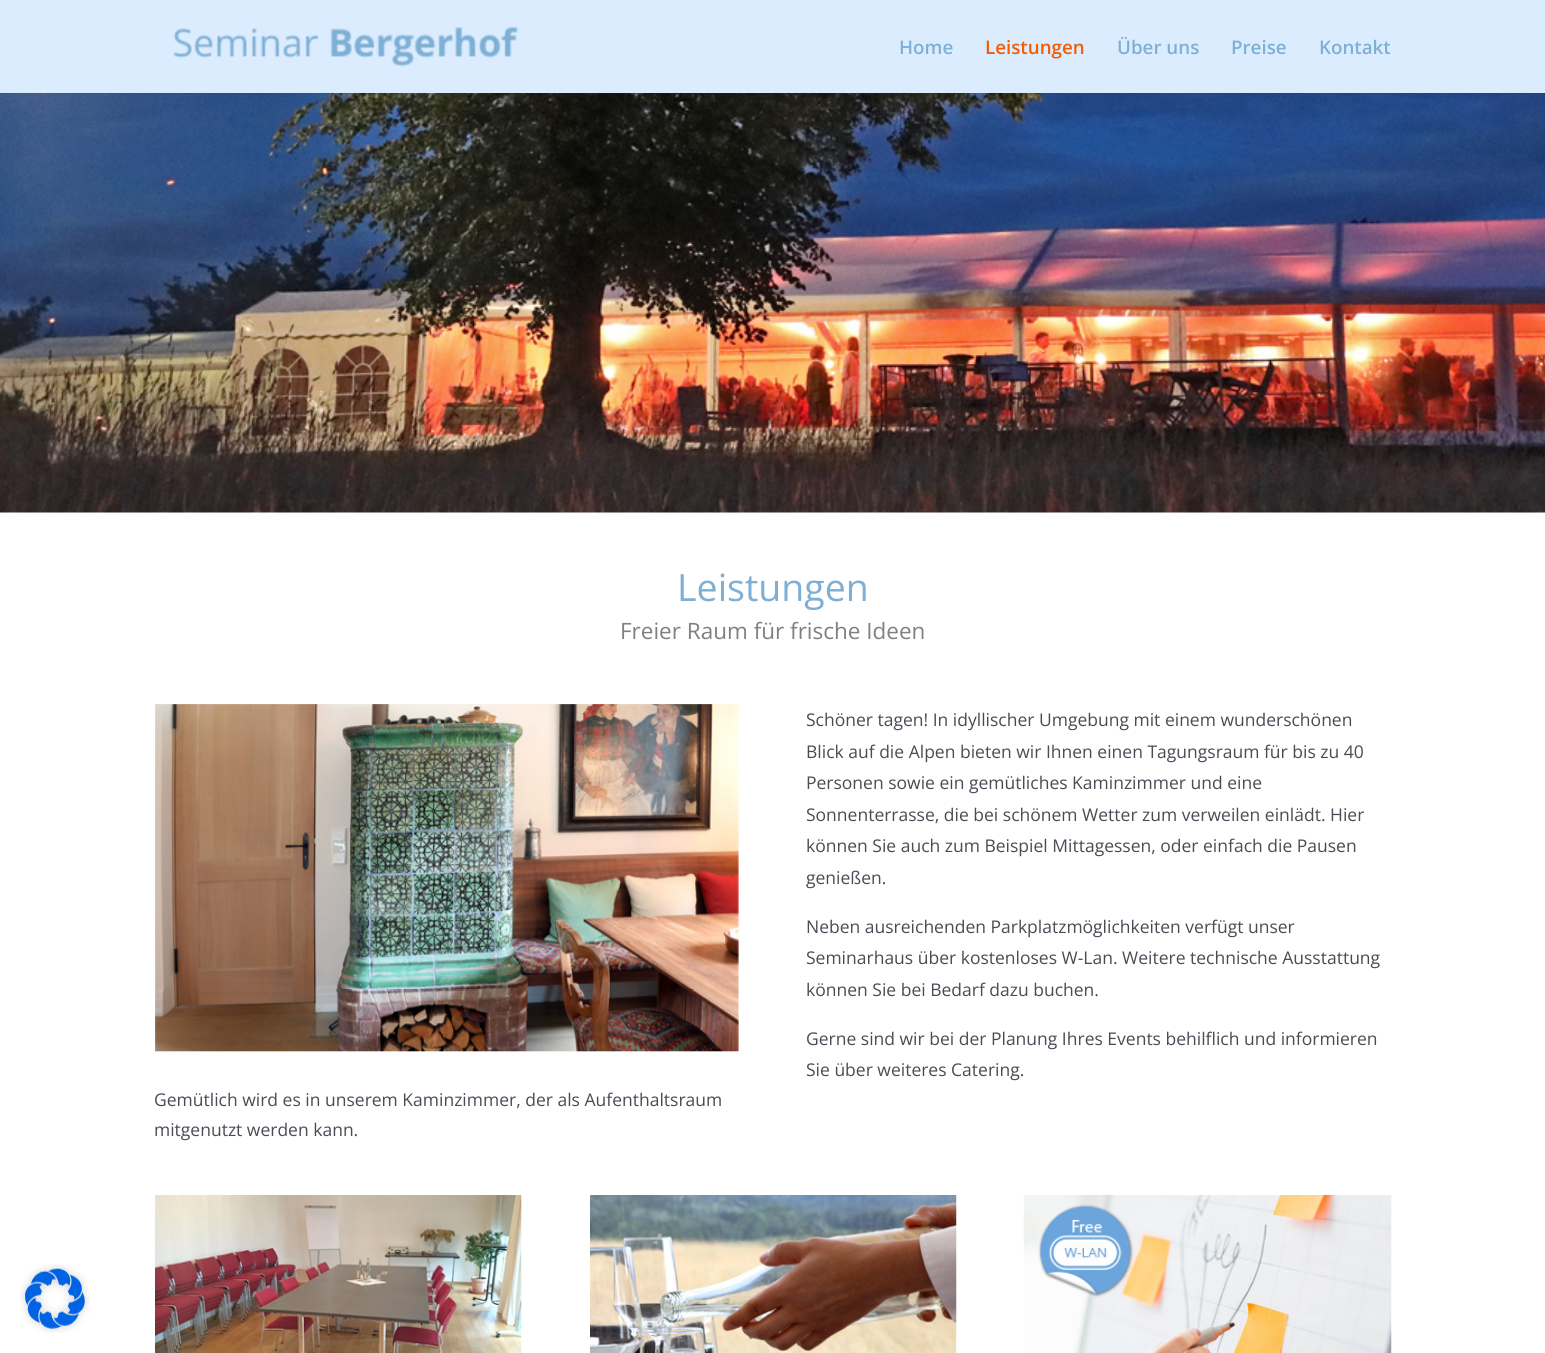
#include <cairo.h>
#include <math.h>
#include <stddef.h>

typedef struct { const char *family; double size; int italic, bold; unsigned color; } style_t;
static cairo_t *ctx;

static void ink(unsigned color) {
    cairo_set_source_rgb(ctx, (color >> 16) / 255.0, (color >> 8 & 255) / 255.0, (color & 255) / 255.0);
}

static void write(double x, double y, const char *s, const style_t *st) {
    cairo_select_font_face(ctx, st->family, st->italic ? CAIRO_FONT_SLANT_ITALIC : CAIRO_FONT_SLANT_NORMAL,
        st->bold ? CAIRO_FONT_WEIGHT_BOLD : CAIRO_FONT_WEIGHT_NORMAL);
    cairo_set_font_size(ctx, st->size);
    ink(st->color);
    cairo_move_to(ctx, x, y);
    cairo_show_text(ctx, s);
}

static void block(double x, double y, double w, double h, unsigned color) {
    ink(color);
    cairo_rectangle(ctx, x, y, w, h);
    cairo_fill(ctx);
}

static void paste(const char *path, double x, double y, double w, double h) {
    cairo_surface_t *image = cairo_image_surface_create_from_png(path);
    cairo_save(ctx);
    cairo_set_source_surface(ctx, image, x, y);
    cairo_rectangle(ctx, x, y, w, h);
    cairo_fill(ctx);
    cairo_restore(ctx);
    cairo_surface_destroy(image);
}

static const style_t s1 = {"Open Sans SemiBold", 18.75, 0, 0, 0x7eafd4};
static const style_t s2 = {"Open Sans SemiBold", 18.75, 0, 0, 0xf25c02};
static const style_t s3 = {"Open Sans", 37.5, 0, 0, 0x7eafd4};
static const style_t s4 = {"Open Sans", 22.5, 0, 0, 0x808080};
static const style_t s5 = {"Open Sans", 17.5, 0, 0, 0x484c55};

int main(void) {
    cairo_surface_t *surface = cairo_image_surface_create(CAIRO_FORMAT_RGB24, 1545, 1353);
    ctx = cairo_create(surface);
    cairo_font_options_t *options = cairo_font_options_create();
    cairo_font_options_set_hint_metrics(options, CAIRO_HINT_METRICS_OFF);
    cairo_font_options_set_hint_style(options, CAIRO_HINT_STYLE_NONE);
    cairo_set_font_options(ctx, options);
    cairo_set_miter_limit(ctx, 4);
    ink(0xffffff);
    cairo_paint(ctx);
    paste("pic2.png", 0, 93, 1545, 420);
    cairo_set_source_rgba(ctx, 0, 0, 0, 0.1);
    cairo_rectangle(ctx, 0, 93, 1545, 1);
    cairo_fill(ctx);
    block(0, 0, 1545, 93, 0xdbecff);
    paste("pic1.png", 173, 27, 345, 40);
    write(899, 54, "Home", &s1);
    write(985, 54, "Leistungen", &s2);
    write(1117, 54, "Über uns", &s1);
    write(1231, 54, "Preise", &s1);
    write(1319, 54, "Kontakt", &s1);
    write(677, 601, "Leistungen", &s3);
    write(620, 639, "Freier Raum für frische Ideen", &s4);
    write(806, 726, "Schöner tagen! In idyllischer Umgebung mit einem wunderschönen", &s5);
    write(806, 758, "Blick auf die Alpen bieten wir Ihnen einen Tagungsraum für bis zu 40", &s5);
    write(806, 789, "Personen sowie ein gemütliches Kaminzimmer und eine", &s5);
    write(806, 821, "Sonnenterrasse, die bei schönem Wetter zum verweilen einlädt. Hier", &s5);
    write(806, 852, "können Sie auch zum Beispiel Mittagessen, oder einfach die Pausen", &s5);
    write(806, 884, "genießen.", &s5);
    write(806, 933, "Neben ausreichenden Parkplatzmöglichkeiten verfügt unser", &s5);
    write(806, 964, "Seminarhaus über kostenloses W-Lan. Weitere technische Ausstattung", &s5);
    write(806, 996, "können Sie bei Bedarf dazu buchen.", &s5);
    write(806, 1045, "Gerne sind wir bei der Planung Ihres Events behilflich und informieren", &s5);
    write(806, 1076, "Sie über weiteres Catering.", &s5);
    paste("pic3.png", 155, 704, 584, 348);
    write(154, 1106, "Gemütlich wird es in unserem Kaminzimmer, der als Aufenthaltsraum", &s5);
    write(154, 1136, "mitgenutzt werden kann.", &s5);
    paste("pic4.png", 155, 1195, 367, 158);
    paste("pic5.png", 590, 1195, 367, 158);
    paste("pic6.png", 1023, 1195, 369, 158);
    paste("pic7.png", 20, 1264, 70, 69);
    cairo_surface_write_to_png(surface, "screenshot.png");
    cairo_font_options_destroy(options);
    cairo_destroy(ctx);
    cairo_surface_destroy(surface);
    return 0;
}
